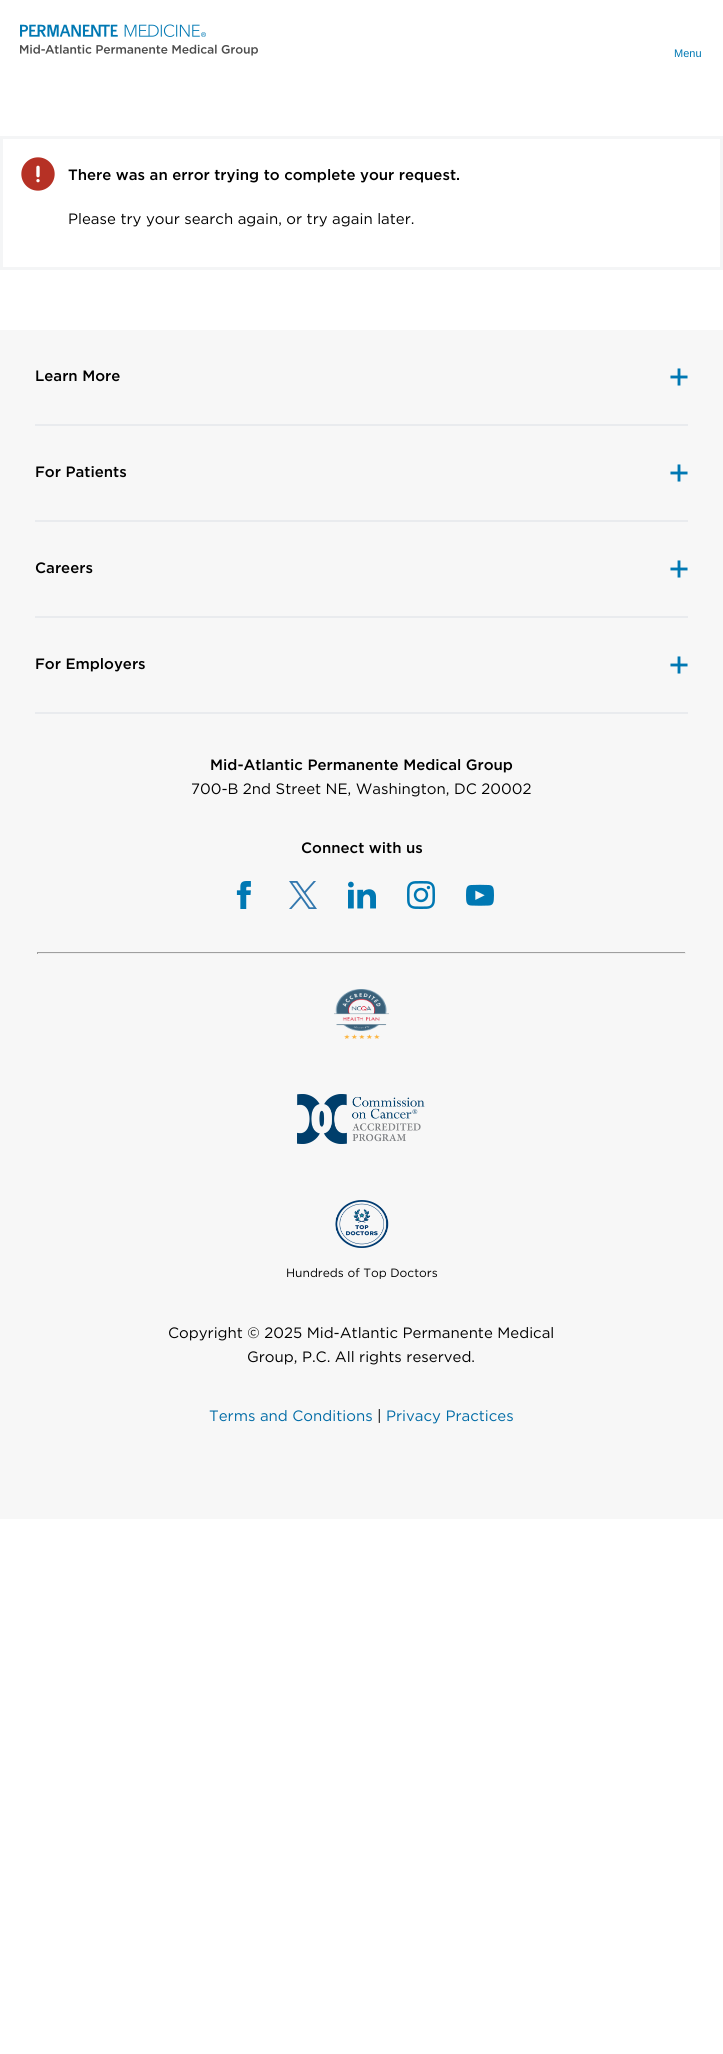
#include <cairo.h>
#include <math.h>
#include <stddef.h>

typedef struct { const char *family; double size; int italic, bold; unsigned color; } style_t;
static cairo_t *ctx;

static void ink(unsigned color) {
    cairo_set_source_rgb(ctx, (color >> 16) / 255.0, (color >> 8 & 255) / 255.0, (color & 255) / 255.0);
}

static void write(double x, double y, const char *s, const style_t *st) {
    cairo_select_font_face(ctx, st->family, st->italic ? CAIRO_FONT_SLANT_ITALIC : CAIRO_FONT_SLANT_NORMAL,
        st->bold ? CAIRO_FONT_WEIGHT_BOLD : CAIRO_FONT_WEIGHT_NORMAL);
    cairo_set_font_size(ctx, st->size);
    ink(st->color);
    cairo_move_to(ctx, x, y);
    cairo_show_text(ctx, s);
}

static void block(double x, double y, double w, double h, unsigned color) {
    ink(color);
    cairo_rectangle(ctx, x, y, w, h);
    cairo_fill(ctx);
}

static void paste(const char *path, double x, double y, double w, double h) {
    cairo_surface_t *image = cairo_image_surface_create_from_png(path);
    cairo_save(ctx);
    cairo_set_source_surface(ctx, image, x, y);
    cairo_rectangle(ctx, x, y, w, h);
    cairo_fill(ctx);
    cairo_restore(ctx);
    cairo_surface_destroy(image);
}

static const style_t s1 = {"Liberation Sans", 11, 0, 0, 0x0078b3};
static const style_t s2 = {"Gotham Medium", 15, 0, 0, 0x000000};
static const style_t s3 = {"Gotham", 15, 0, 0, 0x000000};
static const style_t s4 = {"Gotham", 12, 0, 0, 0x000000};
static const style_t s5 = {"Gotham", 15, 0, 0, 0x006ba6};

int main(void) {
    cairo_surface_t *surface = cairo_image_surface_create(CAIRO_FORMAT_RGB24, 723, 2054);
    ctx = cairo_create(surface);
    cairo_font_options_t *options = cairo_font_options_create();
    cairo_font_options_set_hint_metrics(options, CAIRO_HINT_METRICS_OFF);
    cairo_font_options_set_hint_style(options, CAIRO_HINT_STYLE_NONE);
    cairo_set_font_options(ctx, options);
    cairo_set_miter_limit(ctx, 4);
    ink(0xffffff);
    cairo_paint(ctx);
    paste("pic1.png", 20, 24, 238, 32);
    write(674, 57, "Menu", &s1);
    cairo_rectangle(ctx, 1.5, 137.5, 720, 131);
    ink(0xf4f5f6);
    cairo_set_line_width(ctx, 3);
    cairo_stroke(ctx);
    paste("pic2.png", 21, 157, 34, 34);
    write(68, 180, "There was an error trying to complete your request.", &s2);
    write(68, 224, "Please try your search again, or try again later.", &s3);
    block(0, 330, 723, 1189, 0xf7f7f7);
    write(35, 381, "Learn More", &s2);
    paste("pic3.png", 670, 368, 18, 18);
    block(35, 424, 653, 2, 0xe9ebee);
    write(35, 477, "For Patients", &s2);
    paste("pic3.png", 670, 464, 18, 18);
    block(35, 520, 653, 2, 0xe9ebee);
    write(35, 573, "Careers", &s2);
    paste("pic3.png", 670, 560, 18, 18);
    block(35, 616, 653, 2, 0xe9ebee);
    write(35, 669, "For Employers", &s2);
    paste("pic3.png", 670, 656, 18, 18);
    block(35, 712, 653, 2, 0xe9ebee);
    write(210, 770, "Mid-Atlantic Permanente Medical Group", &s2);
    write(191, 794, "700-B 2nd Street NE, Washington, DC 20002", &s3);
    write(301, 853, "Connect with us", &s2);
    paste("pic4.png", 236, 881, 15, 28);
    paste("pic5.png", 289, 881, 28, 28);
    paste("pic6.png", 348, 881, 28, 28);
    paste("pic7.png", 407, 881, 28, 28);
    paste("pic8.png", 466, 884, 28, 22);
    block(37, 952, 649, 1, 0x9f9f9f);
    block(685, 952, 1, 2, 0xeeeeee);
    block(37, 953, 649, 1, 0xeeeeee);
    block(37, 952, 1, 2, 0x9f9f9f);
    paste("pic9.png", 334, 989, 55, 50);
    paste("pic10.png", 297, 1094, 128, 50);
    paste("pic11.png", 335, 1200, 54, 48);
    write(286, 1277, "Hundreds of Top Doctors", &s4);
    write(168, 1338, "Copyright © 2025 Mid-Atlantic Permanente Medical", &s3);
    write(247, 1362, "Group, P.C. All rights reserved.", &s3);
    write(209, 1421, "Terms and Conditions", &s5);
    write(377, 1421, "|", &s3);
    write(386, 1421, "Privacy Practices", &s5);
    cairo_surface_write_to_png(surface, "screenshot.png");
    cairo_font_options_destroy(options);
    cairo_destroy(ctx);
    cairo_surface_destroy(surface);
    return 0;
}
